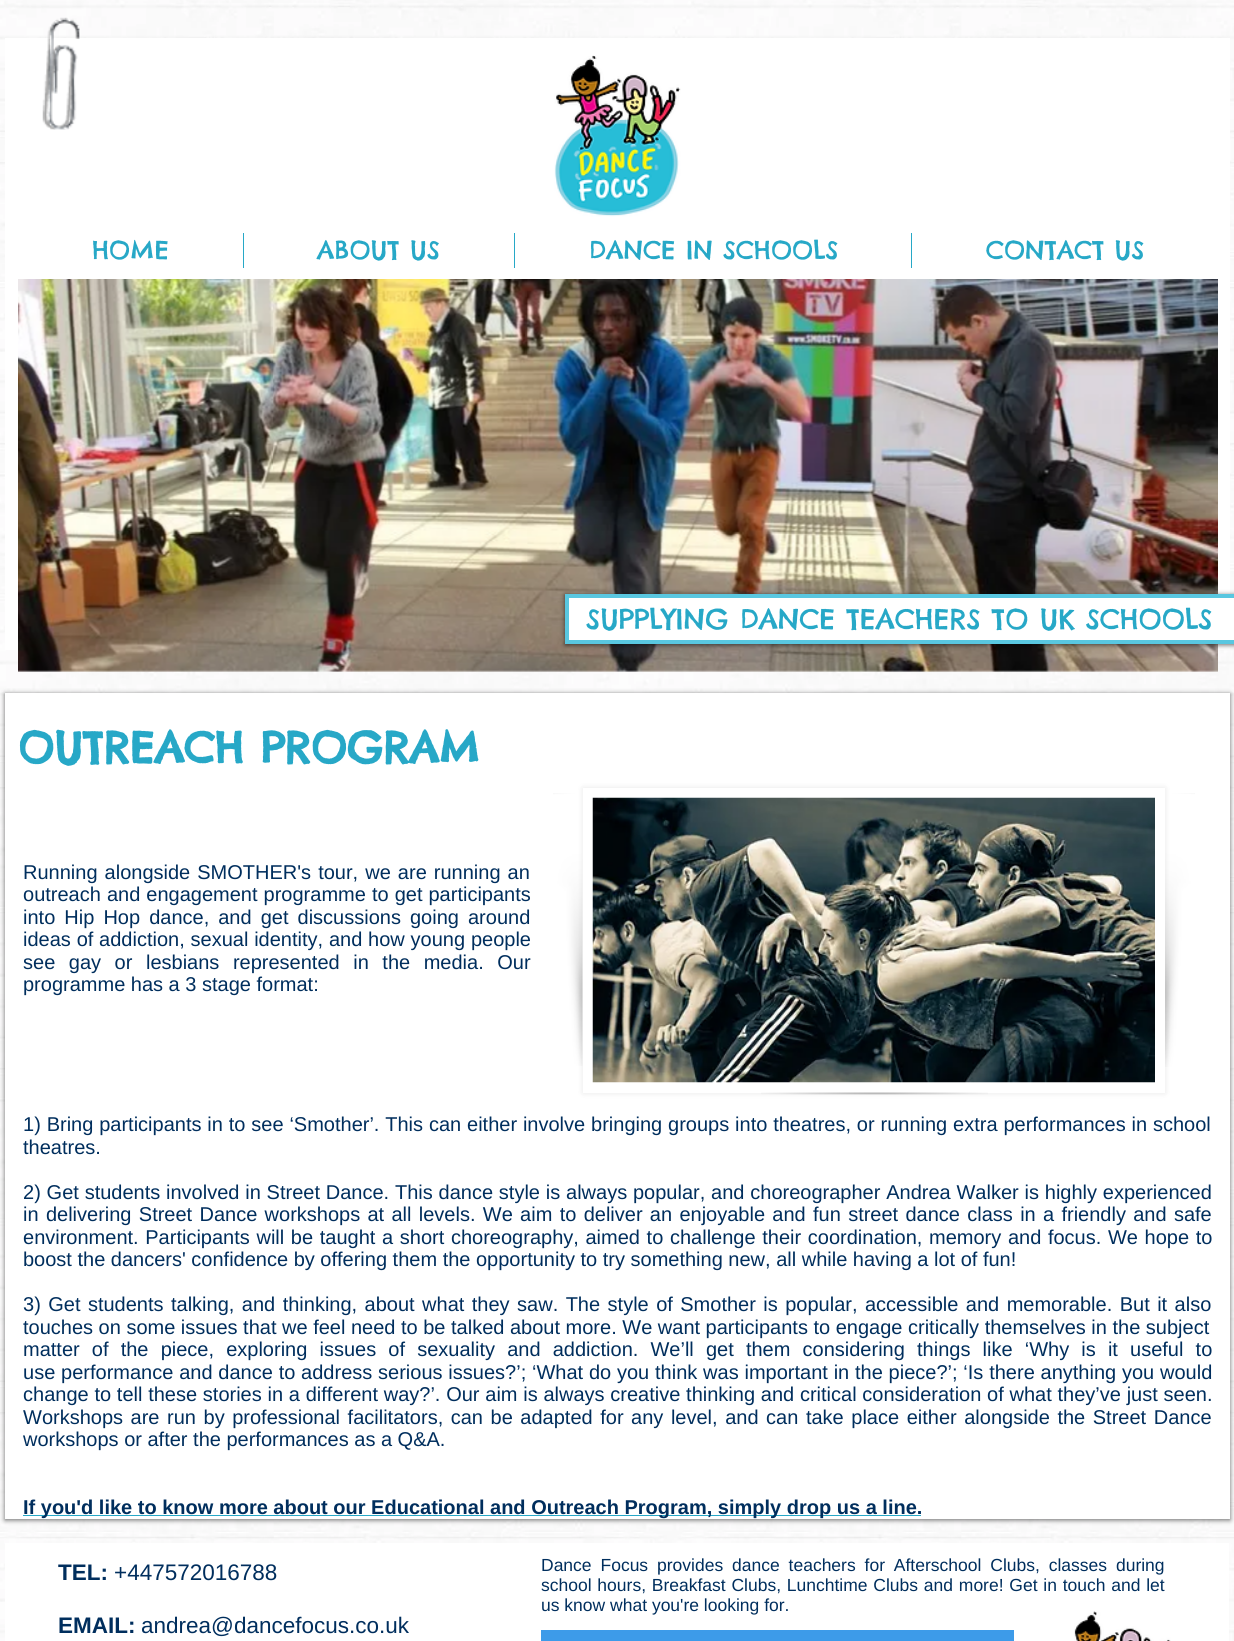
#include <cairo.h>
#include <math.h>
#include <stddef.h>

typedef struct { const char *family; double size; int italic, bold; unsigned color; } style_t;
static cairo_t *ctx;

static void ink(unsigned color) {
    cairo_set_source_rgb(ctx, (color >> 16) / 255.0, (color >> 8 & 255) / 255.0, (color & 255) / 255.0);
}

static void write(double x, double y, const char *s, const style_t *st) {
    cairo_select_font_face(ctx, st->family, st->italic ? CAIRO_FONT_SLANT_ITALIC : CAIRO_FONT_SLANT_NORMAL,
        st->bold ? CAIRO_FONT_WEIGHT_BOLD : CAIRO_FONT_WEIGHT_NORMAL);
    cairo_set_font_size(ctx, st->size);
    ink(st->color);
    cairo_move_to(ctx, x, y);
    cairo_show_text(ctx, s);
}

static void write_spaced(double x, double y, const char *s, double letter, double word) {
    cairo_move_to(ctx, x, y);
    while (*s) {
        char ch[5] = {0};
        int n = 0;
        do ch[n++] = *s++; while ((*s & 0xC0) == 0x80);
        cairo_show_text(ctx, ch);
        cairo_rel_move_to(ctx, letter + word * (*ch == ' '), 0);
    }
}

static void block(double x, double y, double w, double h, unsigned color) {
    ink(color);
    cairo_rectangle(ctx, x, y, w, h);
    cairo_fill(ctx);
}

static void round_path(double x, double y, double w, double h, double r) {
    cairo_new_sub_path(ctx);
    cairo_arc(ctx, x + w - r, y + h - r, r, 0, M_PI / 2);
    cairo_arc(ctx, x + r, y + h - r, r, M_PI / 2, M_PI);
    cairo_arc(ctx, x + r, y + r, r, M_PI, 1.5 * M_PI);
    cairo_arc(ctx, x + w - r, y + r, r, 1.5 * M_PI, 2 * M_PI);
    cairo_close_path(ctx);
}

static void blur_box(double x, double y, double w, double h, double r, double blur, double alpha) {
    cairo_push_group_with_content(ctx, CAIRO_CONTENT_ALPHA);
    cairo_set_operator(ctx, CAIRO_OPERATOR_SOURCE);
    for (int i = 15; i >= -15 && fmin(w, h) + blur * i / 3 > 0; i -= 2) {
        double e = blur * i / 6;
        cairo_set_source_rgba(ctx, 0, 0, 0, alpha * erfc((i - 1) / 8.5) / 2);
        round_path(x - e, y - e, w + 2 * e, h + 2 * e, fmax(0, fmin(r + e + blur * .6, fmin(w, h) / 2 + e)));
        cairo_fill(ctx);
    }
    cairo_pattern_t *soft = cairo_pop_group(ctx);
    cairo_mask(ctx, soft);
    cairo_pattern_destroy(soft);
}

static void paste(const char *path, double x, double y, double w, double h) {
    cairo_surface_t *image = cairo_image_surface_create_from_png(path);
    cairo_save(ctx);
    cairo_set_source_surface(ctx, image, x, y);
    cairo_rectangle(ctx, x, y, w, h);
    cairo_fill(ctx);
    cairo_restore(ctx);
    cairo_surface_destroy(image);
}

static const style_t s1 = {"Chelsea Market", 25, 0, 0, 0x27a8c7};
static const style_t s2 = {"Chelsea Market", 27.5, 0, 0, 0x27a8c7};
static const style_t s3 = {"Chelsea Market", 42.5, 0, 1, 0x27a8c7};
static const style_t s4 = {"Liberation Sans", 20, 0, 0, 0x002e5d};
static const style_t s5 = {"Liberation Sans", 20, 0, 1, 0x002e5d};
static const style_t s6 = {"Liberation Sans", 22.5, 0, 1, 0x002e5d};
static const style_t s7 = {"Liberation Sans", 22.5, 0, 0, 0x002e5d};
static const style_t s8 = {"Liberation Sans", 17.5, 0, 0, 0x002e5d};

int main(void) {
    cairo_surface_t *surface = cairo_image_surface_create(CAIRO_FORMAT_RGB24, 1234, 1641);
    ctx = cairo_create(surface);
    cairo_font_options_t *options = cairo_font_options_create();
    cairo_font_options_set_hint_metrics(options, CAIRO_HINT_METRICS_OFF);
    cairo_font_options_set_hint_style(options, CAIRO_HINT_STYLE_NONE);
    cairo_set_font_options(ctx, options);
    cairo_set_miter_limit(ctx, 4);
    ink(0xffffff);
    cairo_paint(ctx);
    paste("pic1.png", 0, 0, 1234, 1641);
    block(5, 38, 1225, 612, 0xffffff);
    paste("pic2.png", 42, 17, 38, 113);
    paste("pic3.png", 554, 55, 127, 162);
    write(92, 259, "HOME", &s1);
    block(243, 233, 1, 35, 0x27a8c7);
    write(317, 259, "ABOUT US", &s1);
    block(514, 233, 1, 35, 0x27a8c7);
    write(589, 259, "DANCE IN SCHOOLS", &s1);
    block(911, 233, 1, 35, 0x27a8c7);
    write(986, 259, "CONTACT US", &s1);
    paste("pic4.png", 18, 279, 1200, 393);
    ink(0x000000);
    blur_box(565, 595, 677, 50, 0, 2.5, 0.6);
    ink(0xffffff);
    cairo_rectangle(ctx, 567, 596, 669, 46);
    cairo_fill_preserve(ctx);
    ink(0x59c7e0);
    cairo_set_line_width(ctx, 4);
    cairo_stroke(ctx);
    write(586, 629, "SUPPLYING DANCE TEACHERS TO UK SCHOOLS", &s2);
    ink(0x000000);
    blur_box(5, 694, 1225, 826, 0, 2.5, 0.6);
    block(5, 693, 1225, 826, 0xffffff);
    write(18, 763, "OUTREACH PROGRAM", &s3);
    cairo_select_font_face(ctx, "Liberation Sans", CAIRO_FONT_SLANT_NORMAL, CAIRO_FONT_WEIGHT_NORMAL);
    cairo_set_font_size(ctx, 20);
    ink(0x002e5d);
    write_spaced(23, 879, "Running alongside SMOTHER's tour, we are running an", 0, 1.5);
    write_spaced(23, 901, "outreach and engagement programme to get participants", 0, 0.5);
    write_spaced(23, 924, "into Hip Hop dance, and get discussions going around", 0, 3.5);
    write_spaced(23, 946, "ideas of addiction, sexual identity, and how young people", 0, 0.25);
    write_spaced(23, 969, "see gay or lesbians represented in the media. Our", 0, 8);
    write(23, 991, "programme has a 3 stage format:", &s4);
    ink(0x000000);
    blur_box(583, 788, 582, 305, 0, 3, 0.1);
    paste("pic5.png", 553, 793, 30, 273);
    block(583, 788, 582, 305, 0xffffff);
    paste("pic6.png", 592, 797, 563, 286);
    paste("pic7.png", 761, 1092, 227, 3);
    paste("pic8.png", 1165, 793, 30, 274);
    ink(0x002e5d);
    write_spaced(23, 1131, "1) Bring participants in to see ‘Smother’. This can either involve bringing groups into theatres, or running extra performances in school", 0, 0.3);
    write(23, 1154, "theatres.", &s4);
    write_spaced(23, 1199, "2) Get students involved in Street Dance. This dance style is always popular, and choreographer Andrea Walker is highly experienced", 0, 0.25);
    write_spaced(23, 1221, "in delivering Street Dance workshops at all levels. We aim to deliver an enjoyable and fun street dance class in a friendly and safe", 0, 1.75);
    write_spaced(23, 1244, "environment. Participants will be taught a short choreography, aimed to challenge their coordination, memory and focus. We hope to", 0, 1.1);
    write(23, 1266, "boost the dancers' confidence by offering them the opportunity to try something new, all while having a lot of fun!", &s4);
    write_spaced(23, 1311, "3) Get students talking, and thinking, about what they saw. The style of Smother is popular, accessible and memorable. But it also", 0, 1.9);
    write(23, 1334, "touches on some issues that we feel need to be talked about more. We want participants to engage critically themselves in the subject", &s4);
    write_spaced(23, 1356, "matter of the piece, exploring issues of sexuality and addiction. We’ll get them considering things like ‘Why is it useful to", 0, 6.6);
    write_spaced(23, 1379, "use performance and dance to address serious issues?’; ‘What do you think was important in the piece?’; ‘Is there anything you would", 0, 0.25);
    write_spaced(23, 1401, "change to tell these stories in a different way?’. Our aim is always creative thinking and critical consideration of what they’ve just seen.", 0, 0.2);
    write_spaced(23, 1424, "Workshops are run by professional facilitators, can be adapted for any level, and can take place either alongside the Street Dance", 0, 2);
    write(23, 1446, "workshops or after the performances as a Q&A.", &s4);
    block(23, 1515, 898, 1, 0x27a8c7);
    write(23, 1514, "If you'd like to know more about our Educational and Outreach Program, simply drop us a line.", &s5);
    block(5, 1543, 1224, 98, 0xffffff);
    write(58, 1580, "TEL:", &s6);
    write(114, 1580, "+447572016788", &s7);
    write(58, 1633, "EMAIL:", &s6);
    write(141, 1633, "andrea@dancefocus.co.uk", &s7);
    cairo_set_font_size(ctx, 17.5);
    write_spaced(541, 1571, "Dance Focus provides dance teachers for Afterschool Clubs, classes during", 0, 4);
    write_spaced(541, 1591, "school hours, Breakfast Clubs, Lunchtime Clubs and more! Get in touch and let", 0, 0.9);
    write(541, 1611, "us know what you're looking for.", &s8);
    block(541, 1630, 473, 11, 0x3d9be9);
    paste("pic9.png", 1074, 1611, 97, 30);
    cairo_surface_write_to_png(surface, "screenshot.png");
    cairo_font_options_destroy(options);
    cairo_destroy(ctx);
    cairo_surface_destroy(surface);
    return 0;
}
